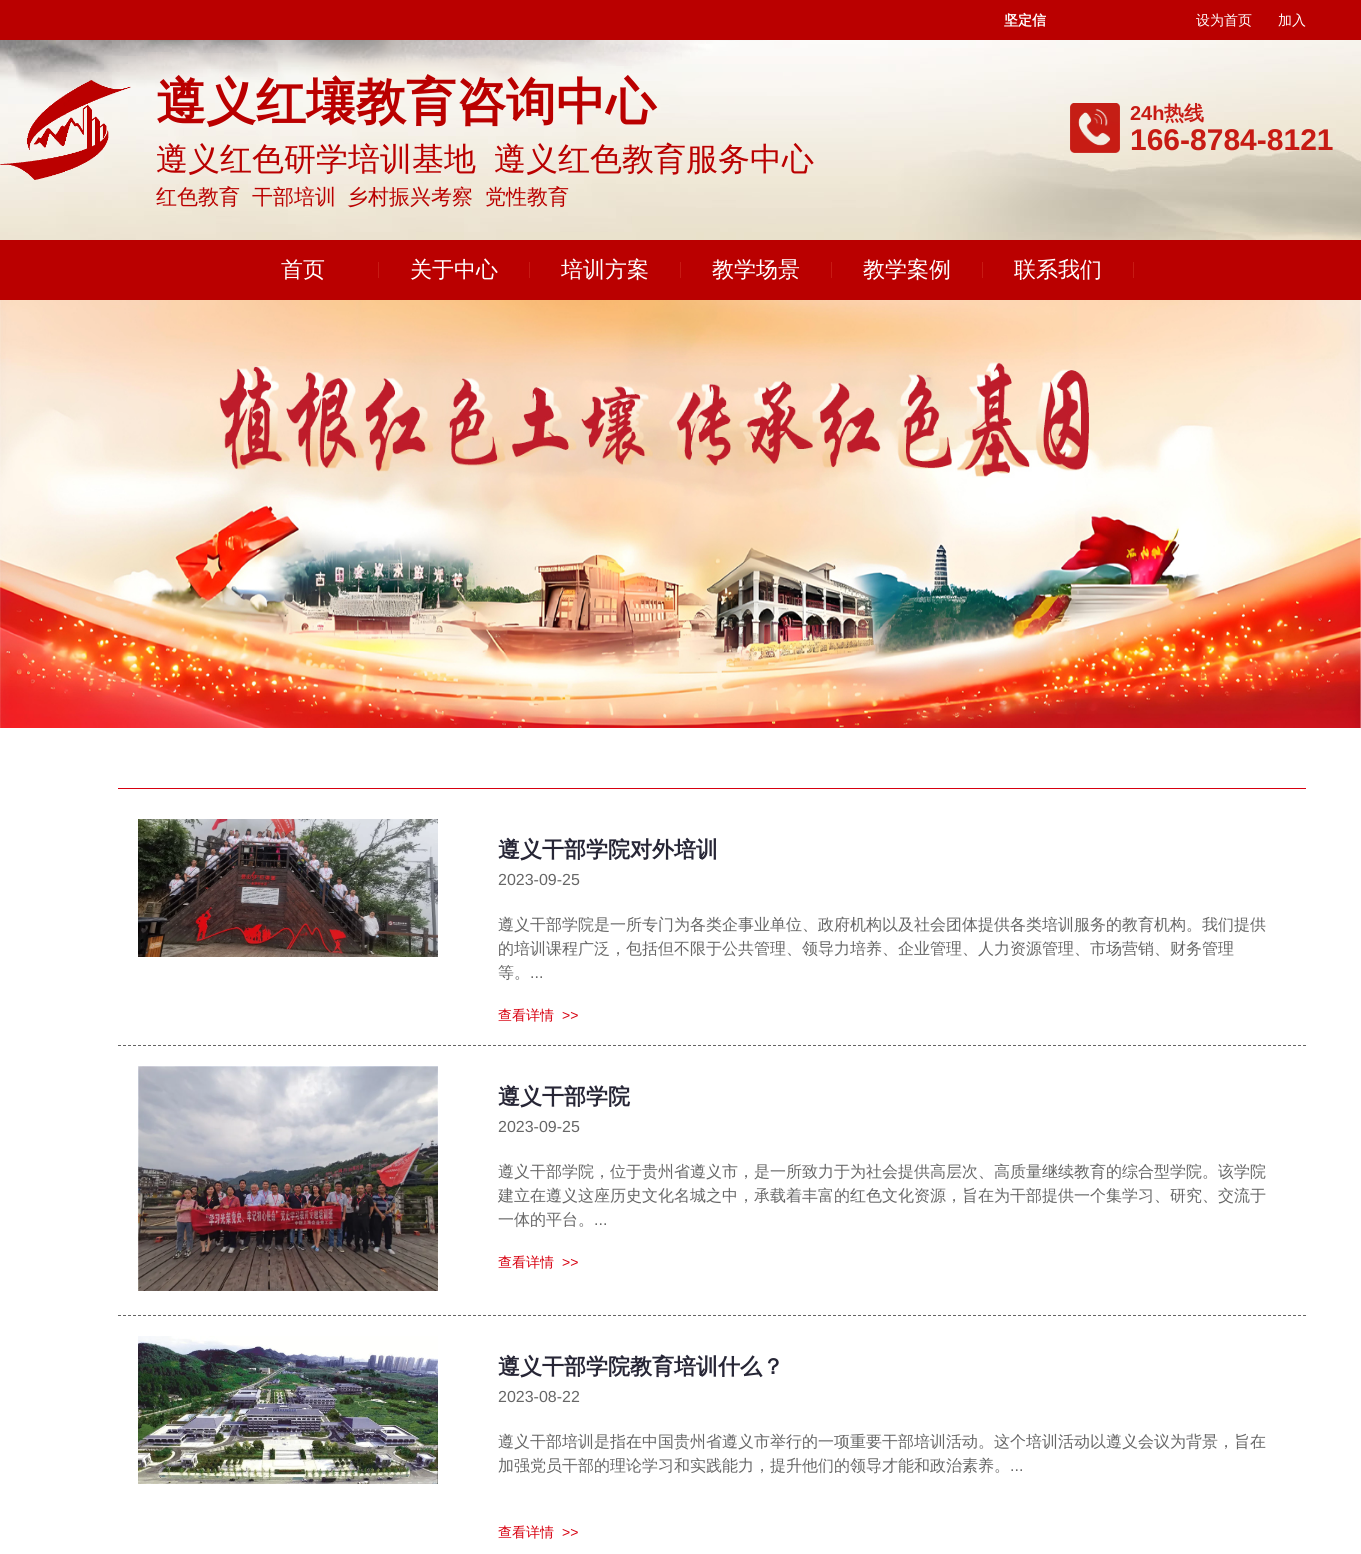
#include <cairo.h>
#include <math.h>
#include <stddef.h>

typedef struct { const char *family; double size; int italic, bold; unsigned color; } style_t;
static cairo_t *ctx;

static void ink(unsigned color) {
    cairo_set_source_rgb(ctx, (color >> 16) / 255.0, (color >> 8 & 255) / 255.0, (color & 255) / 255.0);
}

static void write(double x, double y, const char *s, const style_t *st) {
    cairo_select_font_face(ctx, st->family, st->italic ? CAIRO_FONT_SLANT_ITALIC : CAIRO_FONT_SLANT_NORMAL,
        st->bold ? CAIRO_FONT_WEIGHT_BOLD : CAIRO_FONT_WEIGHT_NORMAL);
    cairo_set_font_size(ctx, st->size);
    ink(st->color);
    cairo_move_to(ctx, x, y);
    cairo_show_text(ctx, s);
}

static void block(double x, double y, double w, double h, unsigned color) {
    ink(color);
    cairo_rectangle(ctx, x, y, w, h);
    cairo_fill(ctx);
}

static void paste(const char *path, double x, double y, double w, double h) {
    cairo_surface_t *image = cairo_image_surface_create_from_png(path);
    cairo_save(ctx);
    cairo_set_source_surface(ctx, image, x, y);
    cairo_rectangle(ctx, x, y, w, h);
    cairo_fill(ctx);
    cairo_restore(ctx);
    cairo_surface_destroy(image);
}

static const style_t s1 = {"WenQuanYi Zen Hei", 14, 0, 1, 0xffffff};
static const style_t s2 = {"WenQuanYi Zen Hei Medium", 14, 0, 0, 0xffffff};
static const style_t s3 = {"WenQuanYi Zen Hei", 50, 0, 1, 0xba0000};
static const style_t s4 = {"WenQuanYi Zen Hei Medium", 32, 0, 0, 0xba0000};
static const style_t s5 = {"WenQuanYi Zen Hei Medium", 21, 0, 0, 0xba0000};
static const style_t s6 = {"Liberation Sans", 20, 0, 1, 0xc71b14};
static const style_t s7 = {"WenQuanYi Zen Hei", 20, 0, 1, 0xc71b14};
static const style_t s8 = {"Liberation Sans", 30, 0, 1, 0xc71b14};
static const style_t s9 = {"WenQuanYi Zen Hei Medium", 22, 0, 0, 0xffffff};
static const style_t s10 = {"WenQuanYi Zen Hei", 22, 0, 1, 0x272636};
static const style_t s11 = {"Liberation Sans", 16, 0, 0, 0x666666};
static const style_t s12 = {"WenQuanYi Zen Hei Medium", 16, 0, 0, 0x666666};
static const style_t s13 = {"WenQuanYi Zen Hei Medium", 14, 0, 0, 0xd7000f};
static const style_t s14 = {"Liberation Sans", 14, 0, 0, 0xd7000f};

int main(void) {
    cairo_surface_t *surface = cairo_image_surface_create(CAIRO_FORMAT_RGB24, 1361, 1554);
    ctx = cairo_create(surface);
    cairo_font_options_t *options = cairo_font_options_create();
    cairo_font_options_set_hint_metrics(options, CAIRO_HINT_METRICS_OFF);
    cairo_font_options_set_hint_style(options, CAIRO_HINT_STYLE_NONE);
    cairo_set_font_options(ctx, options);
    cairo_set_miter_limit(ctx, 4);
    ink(0xffffff);
    cairo_paint(ctx);
    block(0, 0, 1361, 40, 0xba0000);
    write(1004, 25, "坚定信", &s1);
    write(1196, 25, "设为首页", &s2);
    write(1278, 25, "加入", &s2);
    paste("pic1.png", 0, 40, 1361, 200);
    paste("pic2.png", 0, 80, 131, 100);
    write(156, 119, "遵义红壤教育咨询中心", &s3);
    write(156, 170, "遵义红色研学培训基地", &s4);
    write(494, 170, "遵义红色教育服务中心", &s4);
    write(156, 204, "红色教育", &s5);
    write(252, 204, "干部培训", &s5);
    write(347, 204, "乡村振兴考察", &s5);
    write(485, 204, "党性教育", &s5);
    paste("pic3.png", 1070, 103, 50, 50);
    write(1130, 120, "24h", &s6);
    write(1164, 120, "热线", &s7);
    write(1130, 150, "166-8784-8121", &s8);
    block(0, 240, 1361, 60, 0xba0000);
    write(281, 277, "首页", &s9);
    block(378, 262, 1, 16, 0xc71b14);
    write(410, 277, "关于中心", &s9);
    block(529, 262, 1, 16, 0xc71b14);
    write(561, 277, "培训方案", &s9);
    block(680, 262, 1, 16, 0xc71b14);
    write(712, 277, "教学场景", &s9);
    block(831, 262, 1, 16, 0xc71b14);
    write(863, 277, "教学案例", &s9);
    block(982, 262, 1, 16, 0xc71b14);
    write(1014, 277, "联系我们", &s9);
    block(1133, 262, 1, 16, 0xc71b14);
    paste("pic4.png", 0, 300, 1361, 428);
    block(118, 788, 1188, 1, 0xd7000f);
    cairo_new_path(ctx);
    cairo_move_to(ctx, 118, 1045.5);
    cairo_line_to(ctx, 1306, 1045.5);
    ink(0x646464);
    cairo_set_line_width(ctx, 1);
    cairo_set_dash(ctx, (double[]){3, 2}, 2, 0);
    cairo_stroke(ctx);
    paste("pic5.png", 138, 819, 300, 138);
    write(498, 857, "遵义干部学院对外培训", &s10);
    write(498, 885, "2023-09-25", &s11);
    write(498, 930, "遵义干部学院是一所专门为各类企事业单位、政府机构以及社会团体提供各类培训服务的教育机构。我们提供", &s12);
    write(498, 954, "的培训课程广泛，包括但不限于公共管理、领导力培养、企业管理、人力资源管理、市场营销、财务管理", &s12);
    write(498, 978, "等。", &s12);
    write(530, 978, "...", &s11);
    write(498, 1020, "查看详情", &s13);
    write(562, 1020, ">>", &s14);
    cairo_new_path(ctx);
    cairo_move_to(ctx, 118, 1315.5);
    cairo_line_to(ctx, 1306, 1315.5);
    ink(0x646464);
    cairo_stroke(ctx);
    paste("pic6.png", 138, 1066, 300, 225);
    write(498, 1104, "遵义干部学院", &s10);
    write(498, 1132, "2023-09-25", &s11);
    write(498, 1177, "遵义干部学院，位于贵州省遵义市，是一所致力于为社会提供高层次、高质量继续教育的综合型学院。该学院", &s12);
    write(498, 1201, "建立在遵义这座历史文化名城之中，承载着丰富的红色文化资源，旨在为干部提供一个集学习、研究、交流于", &s12);
    write(498, 1225, "一体的平台。", &s12);
    write(594, 1225, "...", &s11);
    write(498, 1267, "查看详情", &s13);
    write(562, 1267, ">>", &s14);
    paste("pic7.png", 138, 1336, 300, 148);
    write(498, 1374, "遵义干部学院教育培训什么？", &s10);
    write(498, 1402, "2023-08-22", &s11);
    write(498, 1447, "遵义干部培训是指在中国贵州省遵义市举行的一项重要干部培训活动。这个培训活动以遵义会议为背景，旨在", &s12);
    write(498, 1471, "加强党员干部的理论学习和实践能力，提升他们的领导才能和政治素养。", &s12);
    write(1010, 1471, "...", &s11);
    write(498, 1537, "查看详情", &s13);
    write(562, 1537, ">>", &s14);
    cairo_surface_write_to_png(surface, "screenshot.png");
    cairo_font_options_destroy(options);
    cairo_destroy(ctx);
    cairo_surface_destroy(surface);
    return 0;
}
